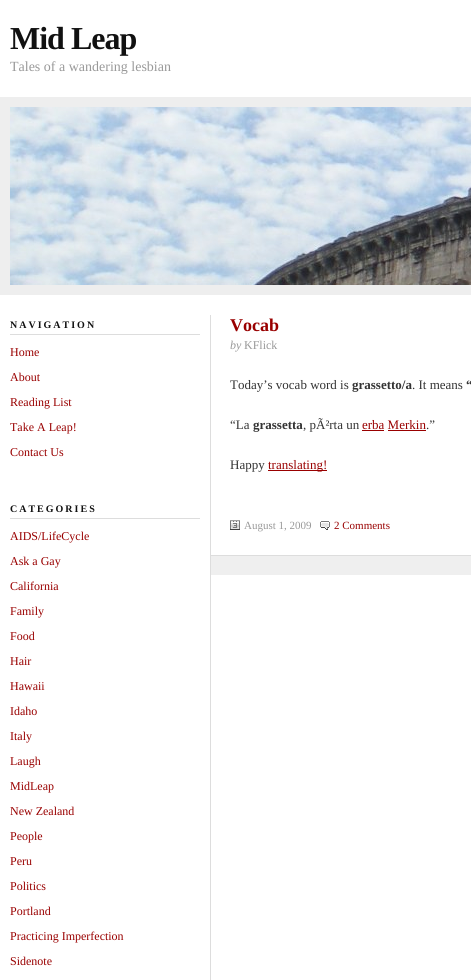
#include <cairo.h>
#include <math.h>
#include <stddef.h>

typedef struct { const char *family; double size; int italic, bold; unsigned color; } style_t;
static cairo_t *ctx;

static void ink(unsigned color) {
    cairo_set_source_rgb(ctx, (color >> 16) / 255.0, (color >> 8 & 255) / 255.0, (color & 255) / 255.0);
}

static void write(double x, double y, const char *s, const style_t *st) {
    cairo_select_font_face(ctx, st->family, st->italic ? CAIRO_FONT_SLANT_ITALIC : CAIRO_FONT_SLANT_NORMAL,
        st->bold ? CAIRO_FONT_WEIGHT_BOLD : CAIRO_FONT_WEIGHT_NORMAL);
    cairo_set_font_size(ctx, st->size);
    ink(st->color);
    cairo_move_to(ctx, x, y);
    cairo_show_text(ctx, s);
}

static void write_spaced(double x, double y, const char *s, double letter, double word) {
    cairo_move_to(ctx, x, y);
    while (*s) {
        char ch[5] = {0};
        int n = 0;
        do ch[n++] = *s++; while ((*s & 0xC0) == 0x80);
        cairo_show_text(ctx, ch);
        cairo_rel_move_to(ctx, letter + word * (*ch == ' '), 0);
    }
}

static void block(double x, double y, double w, double h, unsigned color) {
    ink(color);
    cairo_rectangle(ctx, x, y, w, h);
    cairo_fill(ctx);
}

static void paste(const char *path, double x, double y, double w, double h) {
    cairo_surface_t *image = cairo_image_surface_create_from_png(path);
    cairo_save(ctx);
    cairo_set_source_surface(ctx, image, x, y);
    cairo_rectangle(ctx, x, y, w, h);
    cairo_fill(ctx);
    cairo_restore(ctx);
    cairo_surface_destroy(image);
}

static const style_t s1 = {"Liberation Serif", 14, 0, 0, 0x999999};
static const style_t s2 = {"Liberation Serif", 12, 0, 0, 0x990000};
static const style_t s3 = {"Liberation Serif", 18, 0, 1, 0x990000};
static const style_t s4 = {"Liberation Serif", 12, 1, 0, 0x999999};
static const style_t s5 = {"Liberation Serif", 12, 0, 0, 0x999999};
static const style_t s6 = {"Liberation Serif", 13, 0, 0, 0x333333};
static const style_t s7 = {"Liberation Serif", 13, 0, 1, 0x333333};
static const style_t s8 = {"Liberation Serif", 13, 0, 0, 0x990000};
static const style_t s9 = {"Liberation Serif", 11, 0, 0, 0x999999};
static const style_t s10 = {"Liberation Serif", 11, 0, 0, 0x990000};

int main(void) {
    cairo_surface_t *surface = cairo_image_surface_create(CAIRO_FORMAT_RGB24, 471, 980);
    ctx = cairo_create(surface);
    cairo_font_options_t *options = cairo_font_options_create();
    cairo_font_options_set_hint_metrics(options, CAIRO_HINT_METRICS_OFF);
    cairo_font_options_set_hint_style(options, CAIRO_HINT_STYLE_NONE);
    cairo_set_font_options(ctx, options);
    cairo_set_miter_limit(ctx, 4);
    ink(0xffffff);
    cairo_paint(ctx);
    cairo_select_font_face(ctx, "Liberation Serif", CAIRO_FONT_SLANT_NORMAL, CAIRO_FONT_WEIGHT_BOLD);
    cairo_set_font_size(ctx, 32);
    ink(0x111111);
    write_spaced(10, 49, "Mid Leap", -1, 0);
    write(10, 71, "Tales of a wandering lesbian", &s1);
    cairo_rectangle(ctx, 5, 102, 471, 188);
    ink(0xeeeeee);
    cairo_set_line_width(ctx, 10);
    cairo_stroke(ctx);
    paste("pic1.png", 10, 107, 461, 178);
    block(210, 315, 1, 665, 0xdddddd);
    block(10, 334, 190, 1, 0xdddddd);
    cairo_select_font_face(ctx, "Liberation Serif", CAIRO_FONT_SLANT_NORMAL, CAIRO_FONT_WEIGHT_BOLD);
    cairo_set_font_size(ctx, 10);
    ink(0x111111);
    write_spaced(10, 328, "NAVIGATION", 2, 0);
    write(10, 356, "Home", &s2);
    write(10, 381, "About", &s2);
    write(10, 406, "Reading List", &s2);
    write(10, 431, "Take A Leap!", &s2);
    write(10, 456, "Contact Us", &s2);
    block(10, 518, 190, 1, 0xdddddd);
    cairo_select_font_face(ctx, "Liberation Serif", CAIRO_FONT_SLANT_NORMAL, CAIRO_FONT_WEIGHT_BOLD);
    cairo_set_font_size(ctx, 10);
    ink(0x111111);
    write_spaced(10, 512, "CATEGORIES", 2, 0);
    write(10, 540, "AIDS/LifeCycle", &s2);
    write(10, 565, "Ask a Gay", &s2);
    write(10, 590, "California", &s2);
    write(10, 615, "Family", &s2);
    write(10, 640, "Food", &s2);
    write(10, 665, "Hair", &s2);
    write(10, 690, "Hawaii", &s2);
    write(10, 715, "Idaho", &s2);
    write(10, 740, "Italy", &s2);
    write(10, 765, "Laugh", &s2);
    write(10, 790, "MidLeap", &s2);
    write(10, 815, "New Zealand", &s2);
    write(10, 840, "People", &s2);
    write(10, 865, "Peru", &s2);
    write(10, 890, "Politics", &s2);
    write(10, 915, "Portland", &s2);
    write(10, 940, "Practicing Imperfection", &s2);
    write(10, 965, "Sidenote", &s2);
    write(230, 331, "Vocab", &s3);
    write(230, 349, "by", &s4);
    write(244, 349, "KFlick", &s5);
    write(230, 389, "Today’s vocab word is", &s6);
    write(352, 389, "grassetto/a", &s7);
    write(412, 389, ". It means", &s6);
    write(466, 389, "“", &s7);
    write(230, 429, "“La", &s6);
    write(253, 429, "grassetta", &s7);
    write(303, 429, ", pÃ²rta un", &s6);
    write(362, 429, "erba Merkin", &s8);
    block(362, 430, 22, 1, 0x990000);
    write(426, 429, ".”", &s6);
    block(388, 430, 38, 1, 0x990000);
    write(230, 469, "Happy", &s6);
    block(268, 470, 59, 1, 0x990000);
    write(268, 469, "translating!", &s8);
    paste("pic2.png", 230, 520, 10, 10);
    write(244, 529, "August 1, 2009", &s9);
    paste("pic3.png", 320, 521, 10, 9);
    write(334, 529, "2 Comments", &s10);
    block(211, 556, 260, 19, 0xefefef);
    block(211, 555, 260, 1, 0xdddddd);
    cairo_surface_write_to_png(surface, "screenshot.png");
    cairo_font_options_destroy(options);
    cairo_destroy(ctx);
    cairo_surface_destroy(surface);
    return 0;
}
